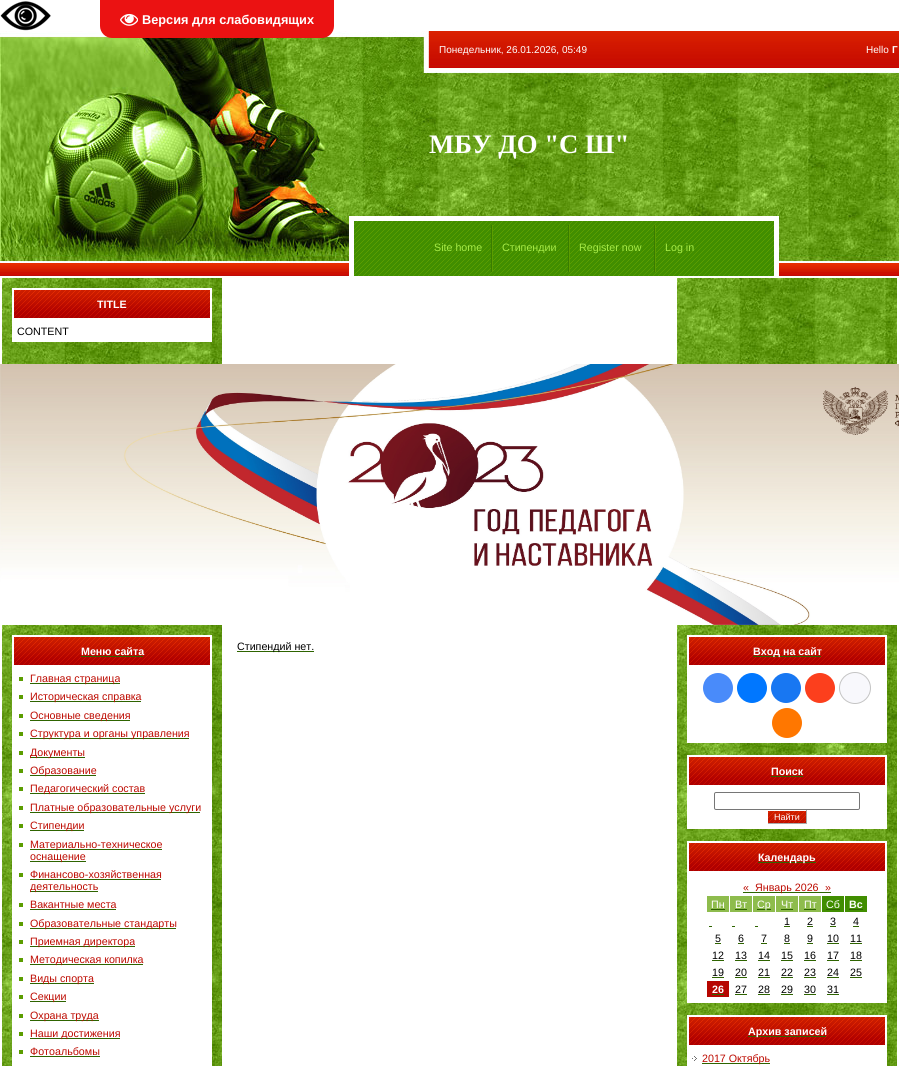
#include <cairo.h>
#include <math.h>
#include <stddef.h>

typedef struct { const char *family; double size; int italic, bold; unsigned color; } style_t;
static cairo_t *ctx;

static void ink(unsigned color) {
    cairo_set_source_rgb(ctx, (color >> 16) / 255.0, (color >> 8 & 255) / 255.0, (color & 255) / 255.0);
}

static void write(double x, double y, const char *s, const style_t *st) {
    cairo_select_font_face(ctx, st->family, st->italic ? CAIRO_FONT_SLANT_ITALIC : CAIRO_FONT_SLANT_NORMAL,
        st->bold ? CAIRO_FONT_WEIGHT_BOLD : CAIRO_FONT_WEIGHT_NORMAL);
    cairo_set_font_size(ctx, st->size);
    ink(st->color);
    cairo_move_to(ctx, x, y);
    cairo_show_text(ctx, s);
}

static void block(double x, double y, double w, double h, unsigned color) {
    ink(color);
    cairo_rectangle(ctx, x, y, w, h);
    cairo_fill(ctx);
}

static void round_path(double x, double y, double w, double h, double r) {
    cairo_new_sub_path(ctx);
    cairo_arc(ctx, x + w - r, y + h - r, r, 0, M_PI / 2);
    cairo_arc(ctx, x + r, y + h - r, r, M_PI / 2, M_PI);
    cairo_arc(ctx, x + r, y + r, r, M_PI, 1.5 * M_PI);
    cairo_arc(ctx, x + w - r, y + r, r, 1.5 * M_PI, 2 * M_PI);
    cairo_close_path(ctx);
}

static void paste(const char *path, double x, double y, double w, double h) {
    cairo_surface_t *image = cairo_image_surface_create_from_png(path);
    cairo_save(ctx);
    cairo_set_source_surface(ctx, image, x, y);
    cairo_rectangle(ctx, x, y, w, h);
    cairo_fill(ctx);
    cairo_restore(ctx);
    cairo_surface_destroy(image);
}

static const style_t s1 = {"Liberation Sans", 12.75, 0, 1, 0xffffff};
static const style_t s2 = {"Liberation Sans", 10, 0, 0, 0xffffff};
static const style_t s3 = {"Liberation Sans", 10, 0, 1, 0xffffff};
static const style_t s4 = {"Liberation Serif", 26.75, 0, 1, 0xffffff};
static const style_t s5 = {"Liberation Sans", 10.7, 0, 0, 0xa6eb47};
static const style_t s6 = {"Liberation Sans", 10.7, 0, 1, 0xffffff};
static const style_t s7 = {"Liberation Sans", 10.7, 0, 0, 0x000000};
static const style_t s8 = {"Liberation Sans", 10.7, 0, 0, 0xbd0a00};
static const style_t s9 = {"Liberation Sans", 9, 0, 0, 0xffffff};
static const style_t s10 = {"Liberation Sans", 10.7, 0, 0, 0xffffff};

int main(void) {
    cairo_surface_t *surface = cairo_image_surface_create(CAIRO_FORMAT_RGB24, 899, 1066);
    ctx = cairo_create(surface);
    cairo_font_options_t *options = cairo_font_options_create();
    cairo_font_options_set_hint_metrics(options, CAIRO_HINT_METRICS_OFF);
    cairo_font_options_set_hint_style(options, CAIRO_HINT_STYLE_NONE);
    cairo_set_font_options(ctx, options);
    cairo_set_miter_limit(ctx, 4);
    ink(0xffffff);
    cairo_paint(ctx);
    paste("pic1.png", 0, 1, 51, 30);
    paste("pic3.png", 0, 31, 899, 247);
    paste("pic4.png", 0, 31, 349, 232);
    ink(0xeb1212);
    cairo_new_path(ctx);
    cairo_move_to(ctx, 100, 0);
    cairo_line_to(ctx, 334, 0);
    cairo_line_to(ctx, 334, 26);
    cairo_curve_to(ctx, 334, 32.5, 328.5, 38, 322, 38);
    cairo_line_to(ctx, 112, 38);
    cairo_curve_to(ctx, 105.5, 38, 100, 32.5, 100, 26);
    cairo_close_path(ctx);
    cairo_fill(ctx);
    paste("pic2.png", 120, 13, 18, 13);
    write(142, 24, "Версия для слабовидящих", &s1);
    paste("pic5.png", 349, 31, 80, 185);
    write(439, 53, "Понедельник, 26.01.2026, 05:49", &s2);
    write(866, 53, "Hello", &s2);
    write(892, 53, "Г", &s3);
    write(429, 153, "МБУ ДО \"С Ш\"", &s4);
    paste("pic6.png", 354, 216, 420, 62);
    block(774, 216, 5, 62, 0xffffff);
    block(349, 216, 5, 62, 0xffffff);
    write(434, 251, "Site home", &s5);
    paste("pic7.png", 491, 225, 2, 47);
    write(502, 251, "Стипендии", &s5);
    paste("pic7.png", 568, 225, 2, 47);
    write(579, 251, "Register now", &s5);
    paste("pic7.png", 654, 225, 2, 47);
    write(665, 251, "Log in", &s5);
    paste("pic8.png", 2, 278, 220, 86);
    paste("pic9.png", 12, 288, 200, 32);
    write(97, 308, "TITLE", &s6);
    block(12, 320, 200, 22, 0xffffff);
    write(17, 335, "CONTENT", &s7);
    paste("pic8.png", 677, 278, 220, 86);
    paste("pic10.png", 0, 364, 899, 261);
    paste("pic11.png", 2, 625, 220, 441);
    paste("pic9.png", 12, 635, 200, 32);
    write(81, 655, "Меню сайта", &s6);
    block(81, 656, 62, 1, 0x2e6400);
    block(12, 667, 200, 399, 0xffffff);
    block(19, 677, 4, 4, 0x5b9d00);
    block(30, 683, 90, 1, 0x2e6400);
    write(30, 682, "Главная страница", &s8);
    block(19, 695, 4, 4, 0x5b9d00);
    block(30, 701, 111, 1, 0x2e6400);
    write(30, 700, "Историческая справка", &s8);
    block(19, 714, 4, 4, 0x5b9d00);
    block(30, 720, 100, 1, 0x2e6400);
    write(30, 719, "Основные сведения", &s8);
    block(19, 732, 4, 4, 0x5b9d00);
    block(30, 738, 159, 1, 0x2e6400);
    write(30, 737, "Структура и органы управления", &s8);
    block(19, 751, 4, 4, 0x5b9d00);
    block(30, 757, 55, 1, 0x2e6400);
    write(30, 756, "Документы", &s8);
    block(19, 769, 4, 4, 0x5b9d00);
    block(30, 775, 66, 1, 0x2e6400);
    write(30, 774, "Образование", &s8);
    block(19, 787, 4, 4, 0x5b9d00);
    block(30, 793, 115, 1, 0x2e6400);
    write(30, 792, "Педагогический состав", &s8);
    block(19, 806, 4, 4, 0x5b9d00);
    block(30, 812, 170, 1, 0x2e6400);
    write(30, 811, "Платные образовательные услуги", &s8);
    block(19, 824, 4, 4, 0x5b9d00);
    block(30, 830, 54, 1, 0x2e6400);
    write(30, 829, "Стипендии", &s8);
    block(19, 843, 4, 4, 0x5b9d00);
    block(30, 849, 132, 1, 0x2e6400);
    write(30, 848, "Материально-техническое", &s8);
    block(30, 861, 56, 1, 0x2e6400);
    write(30, 860, "оснащение", &s8);
    block(19, 873, 4, 4, 0x5b9d00);
    write(30, 878, "Финансово-хозяйственная", &s8);
    block(30, 879, 131, 1, 0x2e6400);
    block(30, 891, 68, 1, 0x2e6400);
    write(30, 890, "деятельность", &s8);
    block(19, 903, 4, 4, 0x5b9d00);
    write(30, 908, "Вакантные места", &s8);
    block(30, 909, 86, 1, 0x2e6400);
    block(19, 922, 4, 4, 0x5b9d00);
    block(30, 928, 146, 1, 0x2e6400);
    write(30, 927, "Образовательные стандарты", &s8);
    block(19, 940, 4, 4, 0x5b9d00);
    block(30, 946, 105, 1, 0x2e6400);
    write(30, 945, "Приемная директора", &s8);
    block(19, 958, 4, 4, 0x5b9d00);
    block(30, 964, 113, 1, 0x2e6400);
    write(30, 963, "Методическая копилка", &s8);
    block(19, 977, 4, 4, 0x5b9d00);
    block(30, 983, 64, 1, 0x2e6400);
    write(30, 982, "Виды спорта", &s8);
    block(19, 995, 4, 4, 0x5b9d00);
    block(30, 1001, 36, 1, 0x2e6400);
    write(30, 1000, "Секции", &s8);
    block(19, 1014, 4, 4, 0x5b9d00);
    block(30, 1020, 69, 1, 0x2e6400);
    write(30, 1019, "Охрана труда", &s8);
    block(19, 1032, 4, 4, 0x5b9d00);
    block(30, 1038, 90, 1, 0x2e6400);
    write(30, 1037, "Наши достижения", &s8);
    block(19, 1050, 4, 4, 0x5b9d00);
    write(30, 1055, "Фотоальбомы", &s8);
    block(30, 1056, 70, 1, 0x2e6400);
    block(237, 651, 77, 1, 0x2e6400);
    write(237, 650, "Стипендий нет.", &s7);
    paste("pic11.png", 677, 625, 220, 441);
    paste("pic9.png", 687, 635, 200, 32);
    block(753, 656, 68, 1, 0x2e6400);
    write(753, 655, "Вход на сайт", &s6);
    block(687, 667, 200, 76, 0xffffff);
    ink(0x498bfa);
    cairo_new_path(ctx);
    cairo_arc(ctx, 718, 688, 15, 0, 2 * M_PI);
    cairo_fill(ctx);
    ink(0x0077ff);
    cairo_arc(ctx, 752, 688, 15, 0, 2 * M_PI);
    cairo_fill(ctx);
    ink(0x1877f2);
    cairo_arc(ctx, 786, 688, 15, 0, 2 * M_PI);
    cairo_fill(ctx);
    ink(0xfc3f1d);
    cairo_arc(ctx, 820, 688, 15, 0, 2 * M_PI);
    cairo_fill(ctx);
    ink(0xf8f8fc);
    cairo_arc(ctx, 855, 688, 15.5, 0, 2 * M_PI);
    cairo_fill_preserve(ctx);
    ink(0xc4c4c4);
    cairo_set_line_width(ctx, 1);
    cairo_stroke(ctx);
    ink(0xff7700);
    cairo_arc(ctx, 787, 723, 15, 0, 2 * M_PI);
    cairo_fill(ctx);
    paste("pic9.png", 687, 755, 200, 32);
    write(771, 775, "Поиск", &s6);
    block(771, 776, 32, 1, 0x2e6400);
    block(687, 787, 200, 42, 0xffffff);
    round_path(714.5, 792.5, 145, 17, 1.5);
    ink(0x767676);
    cairo_stroke(ctx);
    paste("pic12.png", 768, 811, 38, 12);
    block(806, 810, 1, 14, 0xaaaaaa);
    block(767, 823, 40, 1, 0xaaaaaa);
    block(767, 823, 1, 1, 0xffffff);
    write(774, 820, "Найти", &s9);
    paste("pic9.png", 687, 841, 200, 32);
    block(758, 862, 58, 1, 0x2e6400);
    write(758, 861, "Календарь", &s6);
    block(687, 873, 200, 130, 0xffffff);
    write(743, 891, "«", &s8);
    block(743, 892, 88, 1, 0x2e6400);
    write(755, 891, "Январь 2026", &s8);
    write(825, 891, "»", &s8);
    block(707, 896, 22, 16, 0x8ebc4d);
    write(711, 908, "Пн", &s10);
    block(711, 909, 14, 1, 0x2e6400);
    block(730, 896, 22, 16, 0x8ebc4d);
    write(735, 908, "Вт", &s10);
    block(735, 909, 12, 1, 0x2e6400);
    block(753, 896, 22, 16, 0x8ebc4d);
    block(757, 909, 14, 1, 0x2e6400);
    write(757, 908, "Ср", &s10);
    block(776, 896, 22, 16, 0x8ebc4d);
    write(781, 908, "Чт", &s10);
    block(781, 909, 12, 1, 0x2e6400);
    block(799, 896, 22, 16, 0x8ebc4d);
    write(804, 908, "Пт", &s10);
    block(804, 909, 12, 1, 0x2e6400);
    block(822, 896, 22, 16, 0x418e00);
    write(826, 908, "Сб", &s10);
    block(826, 909, 14, 1, 0x2e6400);
    block(845, 896, 22, 16, 0x418e00);
    write(849, 908, "Вс", &s6);
    block(849, 909, 14, 1, 0x2e6400);
    write(784, 925, "1", &s7);
    block(784, 926, 6, 1, 0x2e6400);
    write(807, 925, "2", &s7);
    block(807, 926, 6, 1, 0x2e6400);
    write(830, 925, "3", &s7);
    block(830, 926, 6, 1, 0x2e6400);
    write(853, 925, "4", &s7);
    block(853, 926, 6, 1, 0x2e6400);
    block(709, 926, 3, 1, 0x2e6400);
    block(732, 926, 3, 1, 0x2e6400);
    block(755, 926, 3, 1, 0x2e6400);
    write(715, 942, "5", &s7);
    block(715, 943, 6, 1, 0x2e6400);
    write(738, 942, "6", &s7);
    block(738, 943, 6, 1, 0x2e6400);
    write(761, 942, "7", &s7);
    block(761, 943, 6, 1, 0x2e6400);
    write(784, 942, "8", &s7);
    block(784, 943, 6, 1, 0x2e6400);
    write(807, 942, "9", &s7);
    block(807, 943, 6, 1, 0x2e6400);
    write(827, 942, "10", &s7);
    block(827, 943, 12, 1, 0x2e6400);
    write(850, 942, "11", &s7);
    block(850, 943, 12, 1, 0x2e6400);
    write(712, 959, "12", &s7);
    block(712, 960, 12, 1, 0x2e6400);
    write(735, 959, "13", &s7);
    block(735, 960, 12, 1, 0x2e6400);
    write(758, 959, "14", &s7);
    block(758, 960, 12, 1, 0x2e6400);
    write(781, 959, "15", &s7);
    block(781, 960, 12, 1, 0x2e6400);
    write(804, 959, "16", &s7);
    block(804, 960, 12, 1, 0x2e6400);
    write(827, 959, "17", &s7);
    block(827, 960, 12, 1, 0x2e6400);
    write(850, 959, "18", &s7);
    block(850, 960, 12, 1, 0x2e6400);
    write(712, 976, "19", &s7);
    block(712, 977, 12, 1, 0x2e6400);
    write(735, 976, "20", &s7);
    block(735, 977, 12, 1, 0x2e6400);
    write(758, 976, "21", &s7);
    block(758, 977, 12, 1, 0x2e6400);
    write(781, 976, "22", &s7);
    block(781, 977, 12, 1, 0x2e6400);
    write(804, 976, "23", &s7);
    block(804, 977, 12, 1, 0x2e6400);
    write(827, 976, "24", &s7);
    block(827, 977, 12, 1, 0x2e6400);
    write(850, 976, "25", &s7);
    block(850, 977, 12, 1, 0x2e6400);
    block(707, 981, 22, 16, 0xb60600);
    write(712, 993, "26", &s6);
    block(712, 994, 12, 1, 0x2e6400);
    write(735, 993, "27", &s7);
    block(735, 994, 12, 1, 0x2e6400);
    write(758, 993, "28", &s7);
    block(758, 994, 12, 1, 0x2e6400);
    write(781, 993, "29", &s7);
    block(781, 994, 12, 1, 0x2e6400);
    write(804, 993, "30", &s7);
    block(804, 994, 12, 1, 0x2e6400);
    write(827, 993, "31", &s7);
    block(827, 994, 12, 1, 0x2e6400);
    paste("pic9.png", 687, 1015, 200, 32);
    block(748, 1036, 78, 1, 0x2e6400);
    write(748, 1035, "Архив записей", &s6);
    block(687, 1047, 200, 19, 0xffffff);
    paste("pic13.png", 692, 1056, 5, 5);
    block(702, 1063, 68, 1, 0x2e6400);
    write(702, 1062, "2017 Октябрь", &s8);
    cairo_surface_write_to_png(surface, "screenshot.png");
    cairo_font_options_destroy(options);
    cairo_destroy(ctx);
    cairo_surface_destroy(surface);
    return 0;
}
